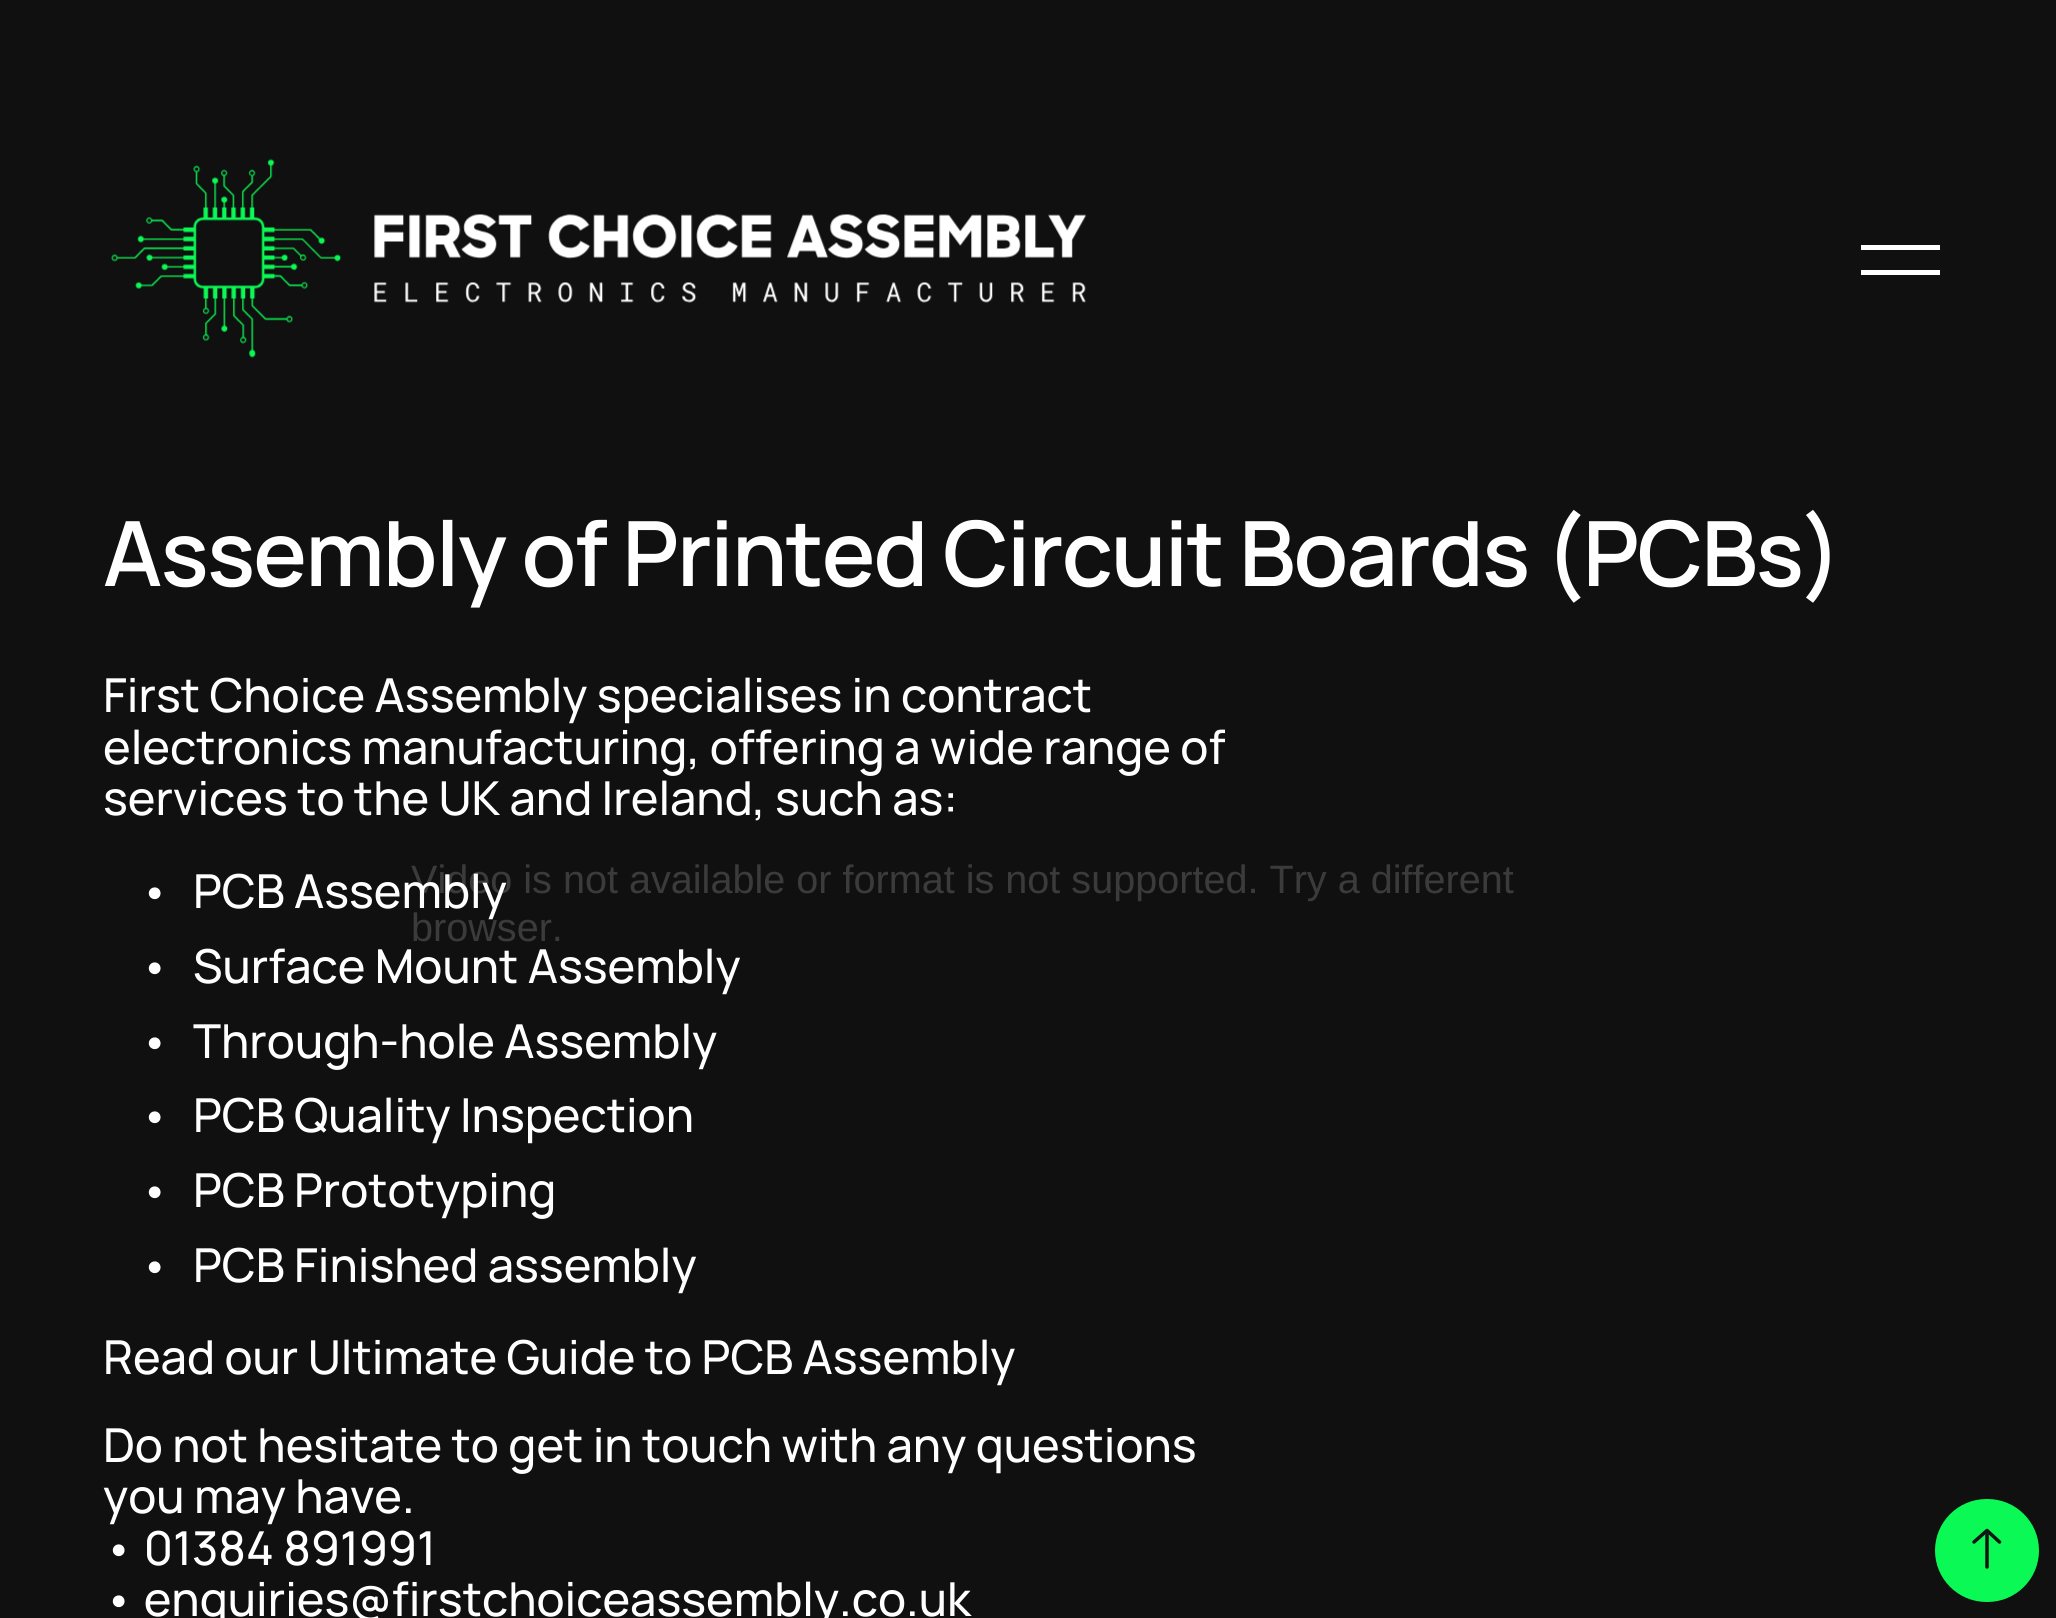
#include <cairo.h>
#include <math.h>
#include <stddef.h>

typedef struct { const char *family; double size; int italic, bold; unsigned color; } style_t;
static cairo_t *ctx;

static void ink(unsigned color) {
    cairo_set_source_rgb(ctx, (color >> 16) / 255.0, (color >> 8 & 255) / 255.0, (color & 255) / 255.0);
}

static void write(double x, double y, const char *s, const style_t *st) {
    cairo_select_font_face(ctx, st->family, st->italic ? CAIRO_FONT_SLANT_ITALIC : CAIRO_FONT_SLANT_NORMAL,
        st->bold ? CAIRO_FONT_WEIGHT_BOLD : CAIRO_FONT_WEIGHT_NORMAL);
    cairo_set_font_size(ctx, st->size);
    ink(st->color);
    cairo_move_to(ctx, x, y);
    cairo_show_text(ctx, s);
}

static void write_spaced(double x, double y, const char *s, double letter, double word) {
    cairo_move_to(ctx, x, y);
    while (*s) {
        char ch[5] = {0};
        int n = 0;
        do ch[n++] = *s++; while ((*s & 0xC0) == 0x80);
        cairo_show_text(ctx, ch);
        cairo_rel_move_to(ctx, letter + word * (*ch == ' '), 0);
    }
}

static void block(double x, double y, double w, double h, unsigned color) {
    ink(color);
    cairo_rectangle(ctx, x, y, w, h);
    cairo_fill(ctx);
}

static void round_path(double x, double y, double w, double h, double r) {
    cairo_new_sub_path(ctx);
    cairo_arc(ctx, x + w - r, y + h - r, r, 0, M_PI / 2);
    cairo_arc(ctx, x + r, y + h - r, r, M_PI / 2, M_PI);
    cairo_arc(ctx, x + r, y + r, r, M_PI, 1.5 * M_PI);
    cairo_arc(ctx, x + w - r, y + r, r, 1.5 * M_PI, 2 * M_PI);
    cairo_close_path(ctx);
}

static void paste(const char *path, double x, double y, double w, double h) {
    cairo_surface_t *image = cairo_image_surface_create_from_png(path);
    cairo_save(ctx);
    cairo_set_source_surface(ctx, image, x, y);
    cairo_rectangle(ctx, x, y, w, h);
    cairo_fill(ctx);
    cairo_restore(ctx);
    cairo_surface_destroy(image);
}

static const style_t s1 = {"Manrope Medium", 46.8, 0, 0, 0xffffff};
static const style_t s2 = {"Liberation Sans", 39.6, 0, 0, 0x3b3b3b};

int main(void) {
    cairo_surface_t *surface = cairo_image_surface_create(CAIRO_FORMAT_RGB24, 2056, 1618);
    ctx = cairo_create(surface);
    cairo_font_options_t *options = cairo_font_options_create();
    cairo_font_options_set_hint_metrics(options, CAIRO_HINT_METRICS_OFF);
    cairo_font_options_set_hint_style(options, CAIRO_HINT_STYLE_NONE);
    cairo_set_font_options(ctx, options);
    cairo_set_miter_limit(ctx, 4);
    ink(0x101010);
    cairo_paint(ctx);
    paste("pic1.png", 111, 159, 976, 199);
    block(1861, 245, 79, 5, 0xffffff);
    block(1861, 270, 79, 5, 0xffffff);
    cairo_select_font_face(ctx, "Manrope SemiBold", CAIRO_FONT_SLANT_NORMAL, CAIRO_FONT_WEIGHT_NORMAL);
    cairo_set_font_size(ctx, 90);
    write_spaced(103, 586, "Assembly of Printed Circuit Boards (PCBs)", -1.8, 0);
    write(103, 712, "First Choice Assembly specialises in contract", &s1);
    write(103, 764, "electronics manufacturing, offering a wide range of", &s1);
    write(103, 815, "services to the UK and Ireland, such as:", &s1);
    write(139, 908, "•", &s1);
    write(411, 893, "Video is not available or format is not supported. Try a different", &s2);
    write(193, 908, "PCB Assembly", &s1);
    write(139, 983, "•", &s1);
    write(193, 983, "Surface Mount Assembly", &s1);
    write(139, 1058, "•", &s1);
    write(193, 1058, "Through-hole Assembly", &s1);
    write(139, 1132, "•", &s1);
    write(193, 1132, "PCB Quality Inspection", &s1);
    write(139, 1207, "•", &s1);
    write(193, 1207, "PCB Prototyping", &s1);
    write(139, 1282, "•", &s1);
    write(193, 1282, "PCB Finished assembly", &s1);
    write(103, 1374, "Read our Ultimate Guide to PCB Assembly", &s1);
    write(103, 1462, "Do not hesitate to get in touch with any questions", &s1);
    write(103, 1513, "you may have.", &s1);
    write(103, 1565, "• 01384 891991", &s1);
    write(103, 1616, "• enquiries@firstchoiceassembly.co.uk", &s1);
    write(411, 941, "browser.", &s2);
    ink(0x0bf954);
    round_path(1935, 1499, 104, 103, 51.5);
    cairo_fill(ctx);
    cairo_new_path(ctx);
    cairo_move_to(ctx, 1987, 1535);
    cairo_line_to(ctx, 1987, 1567);
    cairo_move_to(ctx, 1999.5, 1542);
    cairo_line_to(ctx, 1987, 1530.5);
    cairo_line_to(ctx, 1974, 1542);
    ink(0x141414);
    cairo_set_line_width(ctx, 3.5);
    cairo_set_line_cap(ctx, CAIRO_LINE_CAP_ROUND);
    cairo_set_line_join(ctx, CAIRO_LINE_JOIN_ROUND);
    cairo_stroke(ctx);
    cairo_surface_write_to_png(surface, "screenshot.png");
    cairo_font_options_destroy(options);
    cairo_destroy(ctx);
    cairo_surface_destroy(surface);
    return 0;
}
